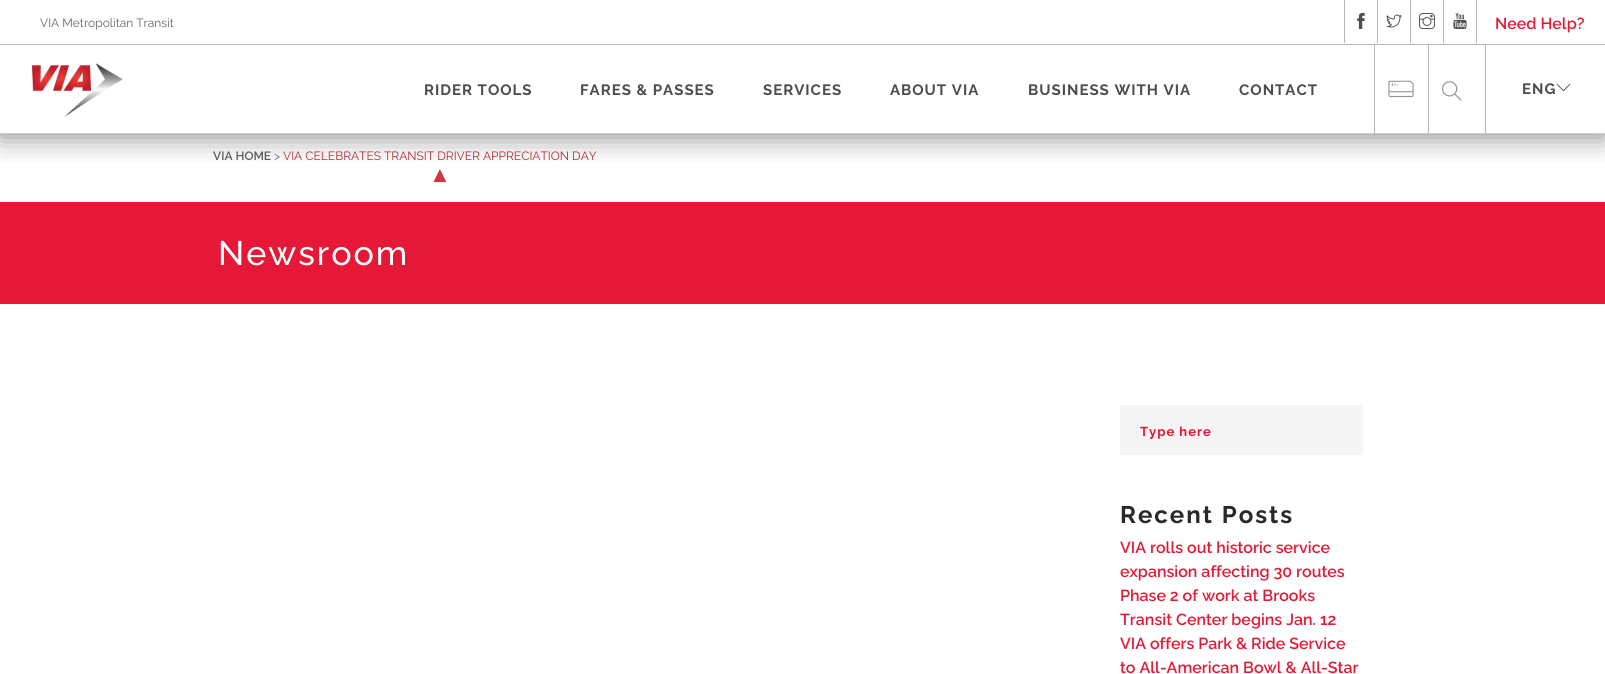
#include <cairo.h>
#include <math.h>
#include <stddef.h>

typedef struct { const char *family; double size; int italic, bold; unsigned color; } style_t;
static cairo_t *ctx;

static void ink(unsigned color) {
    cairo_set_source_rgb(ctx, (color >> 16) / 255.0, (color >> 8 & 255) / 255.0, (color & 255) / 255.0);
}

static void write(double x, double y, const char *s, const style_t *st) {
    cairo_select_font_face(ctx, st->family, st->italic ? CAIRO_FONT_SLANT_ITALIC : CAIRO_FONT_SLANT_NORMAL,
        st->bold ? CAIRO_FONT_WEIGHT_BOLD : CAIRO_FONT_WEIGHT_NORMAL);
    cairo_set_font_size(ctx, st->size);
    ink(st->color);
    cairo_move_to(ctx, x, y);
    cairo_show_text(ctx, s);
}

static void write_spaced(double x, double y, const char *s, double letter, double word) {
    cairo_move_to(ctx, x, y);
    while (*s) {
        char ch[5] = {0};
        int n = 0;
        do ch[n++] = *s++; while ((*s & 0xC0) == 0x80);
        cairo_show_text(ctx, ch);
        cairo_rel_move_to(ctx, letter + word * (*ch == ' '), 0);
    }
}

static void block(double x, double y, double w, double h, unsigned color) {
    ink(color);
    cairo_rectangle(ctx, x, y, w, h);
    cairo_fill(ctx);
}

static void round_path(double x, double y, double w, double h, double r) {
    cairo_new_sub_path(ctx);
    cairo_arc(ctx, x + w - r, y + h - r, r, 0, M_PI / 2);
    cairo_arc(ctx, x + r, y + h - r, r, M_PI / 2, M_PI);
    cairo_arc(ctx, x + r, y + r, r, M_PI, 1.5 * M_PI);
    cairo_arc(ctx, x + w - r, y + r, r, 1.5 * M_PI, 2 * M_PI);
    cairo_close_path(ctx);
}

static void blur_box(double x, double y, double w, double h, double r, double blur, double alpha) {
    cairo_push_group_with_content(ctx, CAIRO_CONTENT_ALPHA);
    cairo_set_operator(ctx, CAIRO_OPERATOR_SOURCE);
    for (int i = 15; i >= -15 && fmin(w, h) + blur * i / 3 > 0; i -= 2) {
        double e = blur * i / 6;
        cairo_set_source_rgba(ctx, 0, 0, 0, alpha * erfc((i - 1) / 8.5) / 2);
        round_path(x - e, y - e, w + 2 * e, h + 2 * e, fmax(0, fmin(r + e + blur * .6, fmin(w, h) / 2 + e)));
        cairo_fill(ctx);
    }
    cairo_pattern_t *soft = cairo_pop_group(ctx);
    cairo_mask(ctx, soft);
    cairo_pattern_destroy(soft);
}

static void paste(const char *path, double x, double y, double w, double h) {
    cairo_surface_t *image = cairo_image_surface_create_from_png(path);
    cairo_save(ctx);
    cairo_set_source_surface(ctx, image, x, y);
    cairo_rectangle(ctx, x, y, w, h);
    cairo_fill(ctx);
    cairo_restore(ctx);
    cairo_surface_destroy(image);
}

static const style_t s1 = {"Raleway", 12, 0, 0, 0x666666};
static const style_t s2 = {"Raleway SemiBold", 16, 0, 0, 0xe51937};
static const style_t s3 = {"Raleway SemiBold", 12, 0, 0, 0x5c5c5c};
static const style_t s4 = {"Raleway", 12, 0, 0, 0xb32d35};
static const style_t s5 = {"Liberation Sans", 22, 0, 0, 0xd3353e};

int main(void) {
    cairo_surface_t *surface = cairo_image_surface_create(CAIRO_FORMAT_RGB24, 1605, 674);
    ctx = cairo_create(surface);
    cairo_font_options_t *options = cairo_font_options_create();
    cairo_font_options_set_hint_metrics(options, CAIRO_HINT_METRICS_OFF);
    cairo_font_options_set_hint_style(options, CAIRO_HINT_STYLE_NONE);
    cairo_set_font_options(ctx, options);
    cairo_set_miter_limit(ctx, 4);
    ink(0xffffff);
    cairo_paint(ctx);
    cairo_save(ctx);
    cairo_rectangle(ctx, 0, 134, 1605, 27);
    cairo_clip(ctx);
    ink(0x000000);
    blur_box(0, 3, 1605, 134, 0, 14, 0.47);
    cairo_restore(ctx);
    block(0, 44, 1605, 1, 0xb6b7ba);
    write(40, 27, "VIA Metropolitan Transit", &s1);
    block(1377, 0, 1, 43, 0xb6b7ba);
    block(1344, 0, 1, 43, 0xb6b7ba);
    paste("pic1.png", 1357, 13, 8, 16);
    block(1410, 0, 1, 43, 0xb6b7ba);
    paste("pic2.png", 1386, 14, 16, 14);
    block(1443, 0, 1, 43, 0xb6b7ba);
    paste("pic3.png", 1419, 13, 16, 16);
    block(1476, 0, 1, 43, 0xb6b7ba);
    paste("pic4.png", 1453, 13, 14, 16);
    write(1495, 29, "Need Help?", &s2);
    block(0, 133, 1605, 1, 0xcccccc);
    paste("pic5.png", 32, 63, 91, 54);
    cairo_select_font_face(ctx, "Raleway", CAIRO_FONT_SLANT_NORMAL, CAIRO_FONT_WEIGHT_BOLD);
    cairo_set_font_size(ctx, 15);
    ink(0x4d4d4d);
    write_spaced(424, 95, "RIDER TOOLS", 1, 0);
    write_spaced(580, 95, "FARES & PASSES", 1, 0);
    write_spaced(763, 95, "SERVICES", 1, 0);
    write_spaced(890, 95, "ABOUT VIA", 1, 0);
    write_spaced(1028, 95, "BUSINESS WITH VIA", 1, 0);
    write_spaced(1239, 95, "CONTACT", 1, 0);
    block(1374, 45, 1, 89, 0xb6b7ba);
    paste("pic6.png", 1388, 80, 26, 18);
    block(1428, 45, 1, 89, 0xb6b7ba);
    paste("pic7.png", 1442, 81, 20, 20);
    block(1485, 45, 1, 89, 0xb6b7ba);
    ink(0x4d4d4d);
    write_spaced(1522, 94, "ENG", 1, 0);
    paste("pic8.png", 1556, 83, 15, 9);
    write(213, 160, "VIA HOME", &s3);
    write(274, 160, ">", &s1);
    write(283, 160, "VIA CELEBRATES TRANSIT DRIVER APPRECIATION DAY", &s4);
    write(429, 182, "▲", &s5);
    block(0, 202, 1605, 102, 0xe51937);
    cairo_select_font_face(ctx, "Raleway Medium", CAIRO_FONT_SLANT_NORMAL, CAIRO_FONT_WEIGHT_NORMAL);
    cairo_set_font_size(ctx, 34);
    ink(0xffffff);
    write_spaced(218, 265, "Newsroom", 2, 0);
    block(1120, 405, 243, 50, 0xf5f5f5);
    cairo_select_font_face(ctx, "Raleway", CAIRO_FONT_SLANT_NORMAL, CAIRO_FONT_WEIGHT_BOLD);
    cairo_set_font_size(ctx, 13);
    ink(0xe51937);
    write_spaced(1140, 436, "Type here", 1, 0);
    cairo_set_font_size(ctx, 24);
    ink(0x292929);
    write_spaced(1120, 523, "Recent Posts", 2, 0);
    write(1120, 553, "VIA rolls out historic service", &s2);
    write(1120, 577, "expansion affecting 30 routes", &s2);
    write(1120, 601, "Phase 2 of work at Brooks", &s2);
    write(1120, 625, "Transit Center begins Jan. 12", &s2);
    write(1120, 649, "VIA offers Park & Ride Service", &s2);
    write(1120, 673, "to All-American Bowl & All-Star", &s2);
    cairo_surface_write_to_png(surface, "screenshot.png");
    cairo_font_options_destroy(options);
    cairo_destroy(ctx);
    cairo_surface_destroy(surface);
    return 0;
}
